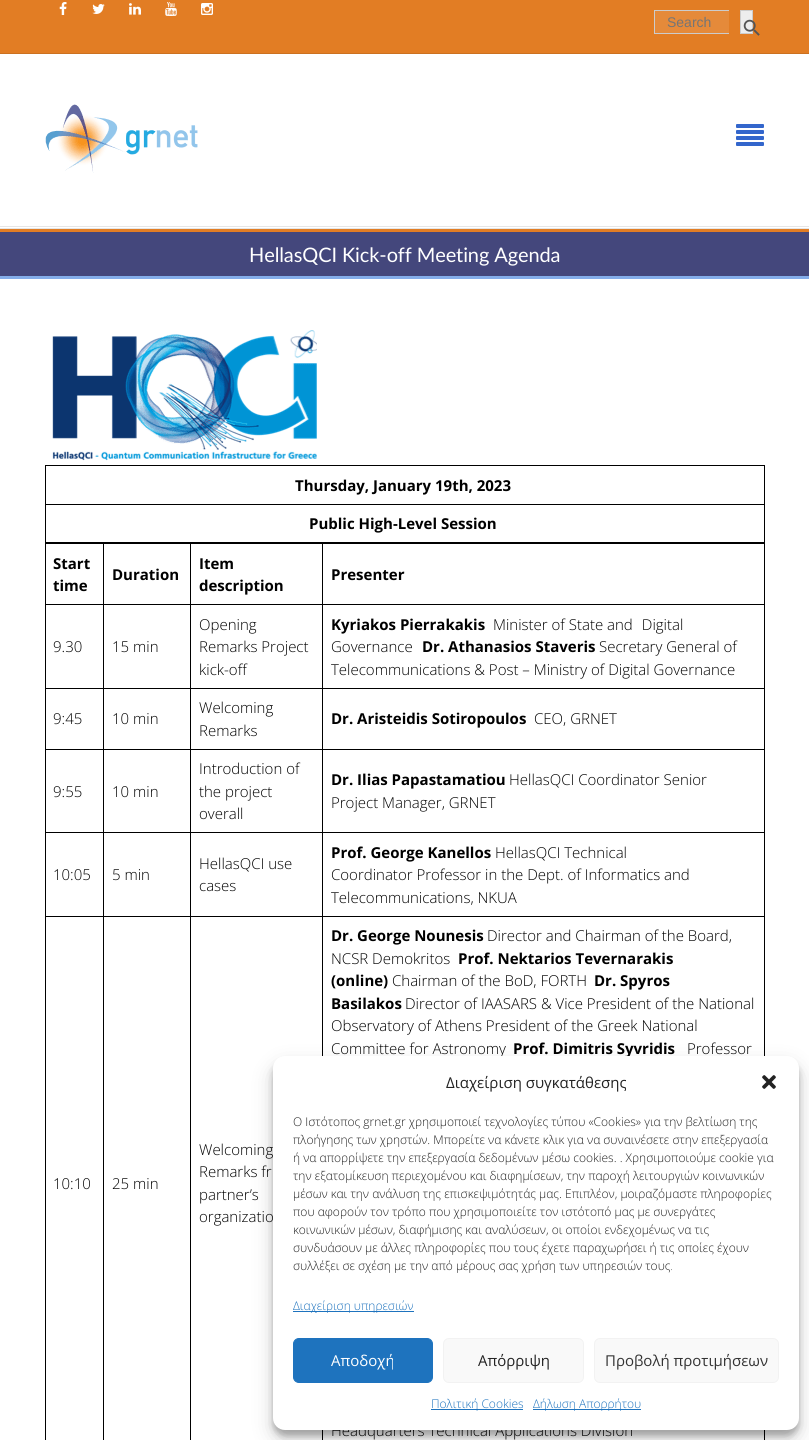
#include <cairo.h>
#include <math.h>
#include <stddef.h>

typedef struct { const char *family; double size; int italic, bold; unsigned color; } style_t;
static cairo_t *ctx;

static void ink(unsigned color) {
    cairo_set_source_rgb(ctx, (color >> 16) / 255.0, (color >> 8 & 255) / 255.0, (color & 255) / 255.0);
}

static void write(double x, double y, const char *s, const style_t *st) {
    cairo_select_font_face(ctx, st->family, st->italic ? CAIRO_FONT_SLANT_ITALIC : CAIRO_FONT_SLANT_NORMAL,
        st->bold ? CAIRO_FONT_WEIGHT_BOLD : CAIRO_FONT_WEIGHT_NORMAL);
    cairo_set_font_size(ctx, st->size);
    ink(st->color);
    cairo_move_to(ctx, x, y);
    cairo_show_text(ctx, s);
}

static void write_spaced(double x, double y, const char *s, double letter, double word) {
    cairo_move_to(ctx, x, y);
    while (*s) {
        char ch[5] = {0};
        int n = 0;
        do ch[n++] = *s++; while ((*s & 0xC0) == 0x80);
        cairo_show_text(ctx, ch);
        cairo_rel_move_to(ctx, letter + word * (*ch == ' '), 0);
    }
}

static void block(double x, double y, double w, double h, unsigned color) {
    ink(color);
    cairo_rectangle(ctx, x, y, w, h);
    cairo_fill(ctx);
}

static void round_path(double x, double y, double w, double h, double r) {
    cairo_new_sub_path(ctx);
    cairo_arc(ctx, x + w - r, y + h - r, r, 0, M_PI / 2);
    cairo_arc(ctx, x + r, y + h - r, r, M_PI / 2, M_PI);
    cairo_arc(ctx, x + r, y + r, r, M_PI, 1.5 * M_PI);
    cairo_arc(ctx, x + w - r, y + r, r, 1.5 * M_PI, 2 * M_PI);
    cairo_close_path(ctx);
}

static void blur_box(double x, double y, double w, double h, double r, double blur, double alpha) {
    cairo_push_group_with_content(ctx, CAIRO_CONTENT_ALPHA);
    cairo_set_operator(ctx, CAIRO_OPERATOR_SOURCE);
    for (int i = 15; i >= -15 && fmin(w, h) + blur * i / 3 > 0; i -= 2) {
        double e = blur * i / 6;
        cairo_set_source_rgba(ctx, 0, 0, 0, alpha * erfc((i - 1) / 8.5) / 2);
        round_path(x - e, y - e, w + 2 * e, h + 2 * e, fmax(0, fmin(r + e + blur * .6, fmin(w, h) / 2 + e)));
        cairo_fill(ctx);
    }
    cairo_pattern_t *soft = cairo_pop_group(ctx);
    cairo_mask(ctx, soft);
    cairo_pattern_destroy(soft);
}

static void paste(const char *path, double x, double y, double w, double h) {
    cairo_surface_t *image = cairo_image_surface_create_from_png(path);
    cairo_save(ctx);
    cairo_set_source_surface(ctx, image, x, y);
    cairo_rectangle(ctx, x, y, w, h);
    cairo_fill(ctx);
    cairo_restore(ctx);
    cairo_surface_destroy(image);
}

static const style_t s1 = {"Liberation Sans", 14, 0, 0, 0x757575};
static const style_t s2 = {"Open Sans", 15, 0, 1, 0x000000};
static const style_t s3 = {"Open Sans Light", 15, 0, 0, 0x000000};
static const style_t s4 = {"Open Sans", 15, 0, 0, 0x222222};
static const style_t s5 = {"Open Sans Light", 12, 0, 0, 0x222222};
static const style_t s6 = {"Open Sans Light", 12, 0, 0, 0x1e73be};
static const style_t s7 = {"Open Sans", 15, 0, 0, 0xffffff};
static const style_t s8 = {"Open Sans", 15, 0, 0, 0x333333};

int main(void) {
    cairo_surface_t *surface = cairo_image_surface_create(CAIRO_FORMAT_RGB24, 809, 1440);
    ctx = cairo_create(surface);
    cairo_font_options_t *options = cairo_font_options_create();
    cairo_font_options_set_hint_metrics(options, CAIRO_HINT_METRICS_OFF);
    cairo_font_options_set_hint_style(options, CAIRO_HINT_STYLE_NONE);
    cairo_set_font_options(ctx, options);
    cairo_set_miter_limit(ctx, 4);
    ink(0xffffff);
    cairo_paint(ctx);
    block(0, 0, 809, 53, 0xe27d24);
    block(0, 53, 809, 1, 0xcb7120);
    paste("pic1.png", 59, 2, 8, 13);
    paste("pic2.png", 92, 4, 13, 10);
    paste("pic3.png", 129, 3, 12, 12);
    paste("pic4.png", 165, 2, 12, 14);
    paste("pic5.png", 201, 3, 12, 12);
    block(655, 11, 74, 22, 0xe58a3a);
    block(654, 10, 75, 1, 0xcccccc);
    block(654, 33, 75, 1, 0xcccccc);
    block(654, 10, 1, 24, 0xcccccc);
    write(667, 27, "Search", &s1);
    ink(0xededed);
    cairo_rectangle(ctx, 740.5, 10.5, 12, 23);
    cairo_fill_preserve(ctx);
    ink(0xcccccc);
    cairo_set_line_width(ctx, 1);
    cairo_stroke(ctx);
    paste("pic6.png", 743, 19, 17, 17);
    block(0, 226, 809, 1, 0xe6e6e6);
    paste("pic7.png", 45, 104, 153, 69);
    paste("pic8.png", 736, 124, 28, 22);
    block(0, 228, 809, 1, 0xe6e6e6);
    block(0, 232, 809, 44, 0x44477c);
    block(0, 229, 809, 3, 0xe27d24);
    block(0, 276, 809, 3, 0x84adea);
    cairo_select_font_face(ctx, "Lato", CAIRO_FONT_SLANT_NORMAL, CAIRO_FONT_WEIGHT_NORMAL);
    cairo_set_font_size(ctx, 20);
    ink(0xffffff);
    write_spaced(249, 262, "HellasQCI Kick-off Meeting Agenda", -0.1, 0);
    paste("pic9.png", 52, 330, 265, 131);
    block(45, 465, 720, 1, 0x000000);
    block(45, 504, 720, 1, 0x000000);
    block(764, 504, 1, 39, 0x000000);
    block(764, 465, 1, 40, 0x000000);
    block(45, 542, 720, 1, 0x000000);
    block(45, 504, 1, 39, 0x000000);
    block(45, 465, 1, 40, 0x000000);
    write(295, 491, "Thursday, January 19th, 2023", &s2);
    write(309, 529, "Public High-Level Session", &s2);
    block(322, 543, 443, 1, 0x000000);
    block(322, 604, 443, 1, 0x000000);
    block(322, 688, 443, 1, 0x000000);
    block(322, 749, 443, 1, 0x000000);
    block(322, 832, 443, 1, 0x000000);
    block(322, 916, 443, 1, 0x000000);
    block(322, 916, 1, 524, 0x000000);
    block(190, 916, 133, 1, 0x000000);
    block(322, 832, 1, 85, 0x000000);
    block(190, 832, 133, 1, 0x000000);
    block(322, 749, 1, 84, 0x000000);
    block(190, 749, 133, 1, 0x000000);
    block(322, 688, 1, 62, 0x000000);
    block(190, 688, 133, 1, 0x000000);
    block(322, 604, 1, 85, 0x000000);
    block(190, 604, 133, 1, 0x000000);
    block(322, 543, 1, 62, 0x000000);
    block(190, 543, 133, 1, 0x000000);
    block(190, 916, 1, 524, 0x000000);
    block(103, 916, 88, 1, 0x000000);
    block(190, 832, 1, 85, 0x000000);
    block(103, 832, 88, 1, 0x000000);
    block(190, 749, 1, 84, 0x000000);
    block(103, 749, 88, 1, 0x000000);
    block(190, 688, 1, 62, 0x000000);
    block(103, 688, 88, 1, 0x000000);
    block(190, 604, 1, 85, 0x000000);
    block(103, 604, 88, 1, 0x000000);
    block(190, 543, 1, 62, 0x000000);
    block(103, 543, 88, 1, 0x000000);
    block(103, 916, 1, 524, 0x000000);
    block(45, 916, 59, 1, 0x000000);
    block(103, 832, 1, 85, 0x000000);
    block(45, 832, 59, 1, 0x000000);
    block(103, 749, 1, 84, 0x000000);
    block(45, 749, 59, 1, 0x000000);
    block(103, 688, 1, 62, 0x000000);
    block(45, 688, 59, 1, 0x000000);
    block(103, 604, 1, 85, 0x000000);
    block(45, 604, 59, 1, 0x000000);
    block(103, 543, 1, 62, 0x000000);
    block(45, 543, 59, 1, 0x000000);
    block(45, 916, 1, 524, 0x000000);
    block(45, 832, 1, 85, 0x000000);
    block(45, 749, 1, 84, 0x000000);
    block(45, 688, 1, 62, 0x000000);
    block(45, 604, 1, 85, 0x000000);
    block(45, 543, 1, 62, 0x000000);
    write(53, 569, "Start", &s2);
    write(53, 591, "time", &s2);
    write(112, 580, "Duration", &s2);
    write(199, 569, "Item", &s2);
    write(199, 591, "description", &s2);
    block(764, 916, 1, 524, 0x000000);
    block(764, 832, 1, 85, 0x000000);
    block(764, 749, 1, 84, 0x000000);
    block(764, 688, 1, 62, 0x000000);
    block(764, 604, 1, 85, 0x000000);
    block(764, 543, 1, 62, 0x000000);
    write(331, 580, "Presenter", &s2);
    write(53, 652, "9.30", &s3);
    write(112, 652, "15 min", &s3);
    write(199, 630, "Opening", &s3);
    write(199, 652, "Remarks Project", &s3);
    write(199, 675, "kick-off", &s3);
    write(331, 630, "Kyriakos Pierrakakis", &s2);
    write(493, 630, "Minister of State and Digital", &s3);
    write(331, 652, "Governance", &s3);
    write(422, 652, "Dr. Athanasios Staveris", &s2);
    write(599, 652, "Secretary General of", &s3);
    write(331, 675, "Telecommunications & Post – Ministry of Digital Governance", &s3);
    write(53, 724, "9:45", &s3);
    write(112, 724, "10 min", &s3);
    write(199, 713, "Welcoming", &s3);
    write(199, 736, "Remarks", &s3);
    write(331, 724, "Dr. Aristeidis Sotiropoulos", &s2);
    write(534, 724, "CEO, GRNET", &s3);
    write(53, 797, "9:55", &s3);
    write(112, 797, "10 min", &s3);
    write(199, 774, "Introduction of", &s3);
    write(199, 797, "the project", &s3);
    write(199, 819, "overall", &s3);
    write(331, 785, "Dr. Ilias Papastamatiou", &s2);
    write(509, 785, "HellasQCI Coordinator Senior", &s3);
    write(331, 808, "Project Manager, GRNET", &s3);
    write(53, 880, "10:05", &s3);
    write(112, 880, "5 min", &s3);
    write(199, 869, "HellasQCI use", &s3);
    write(199, 891, "cases", &s3);
    write(331, 858, "Prof. George Kanellos", &s2);
    write(495, 858, "HellasQCI Technical", &s3);
    write(331, 880, "Coordinator Professor in the Dept. of Informatics and", &s3);
    write(331, 903, "Telecommunications, NKUA", &s3);
    write(53, 1189, "10:10", &s3);
    write(112, 1189, "25 min", &s3);
    write(199, 1155, "Welcoming", &s3);
    write(199, 1177, "Remarks fr", &s3);
    write(199, 1200, "partner’s", &s3);
    write(199, 1222, "organizatio", &s3);
    write(331, 941, "Dr. George Nounesis", &s2);
    write(487, 941, "Director and Chairman of the Board,", &s3);
    write(331, 964, "NCSR Demokritos", &s3);
    write(458, 964, "Prof. Nektarios Tevernarakis", &s2);
    write(331, 986, "(online)", &s2);
    write(392, 986, "Chairman of the BoD, FORTH", &s3);
    write(594, 986, "Dr. Spyros", &s2);
    write(331, 1009, "Basilakos", &s2);
    write(405, 1009, "Director of IAASARS & Vice President of the National", &s3);
    write(331, 1031, "Observatory of Athens President of the Greek National", &s3);
    write(331, 1054, "Committee for Astronomy", &s3);
    write(513, 1054, "Prof. Dimitris Syvridis", &s2);
    write(687, 1054, "Professor", &s3);
    write(331, 1436, "Headquarters Technical Applications Division", &s3);
    ink(0x000000);
    blur_box(273, 1062, 526, 374, 12, 3, 0.23);
    blur_box(273, 1066, 526, 374, 12, 10, 0.19);
    ink(0xffffff);
    round_path(273, 1056, 526, 374, 12);
    cairo_fill(ctx);
    write(446, 1088, "Διαχείριση συγκατάθεσης", &s4);
    paste("pic10.png", 762, 1075, 14, 14);
    write(293, 1126, "Ο Ιστότοπος grnet.gr χρησιμοποιεί τεχνολογίες τύπου «Cookies» για την βελτίωση της", &s5);
    write(293, 1144, "πλοήγησης των χρηστών. Μπορείτε να κάνετε κλικ για να συναινέσετε στην επεξεργασία", &s5);
    write(293, 1162, "ή να απορρίψετε την επεξεργασία δεδομένων μέσω cookies. . Χρησιμοποιούμε cookie για", &s5);
    write(293, 1180, "την εξατομίκευση περιεχομένου και διαφημίσεων, την παροχή λειτουργιών κοινωνικών", &s5);
    write(293, 1198, "μέσων και την ανάλυση της επισκεψιμότητάς μας. Επιπλέον, μοιραζόμαστε πληροφορίες", &s5);
    write(293, 1216, "που αφορούν τον τρόπο που χρησιμοποιείτε τον ιστότοπό μας με συνεργάτες", &s5);
    write(293, 1234, "κοινωνικών μέσων, διαφήμισης και αναλύσεων, οι οποίοι ενδεχομένως να τις", &s5);
    write(293, 1252, "συνδυάσουν με άλλες πληροφορίες που τους έχετε παραχωρήσει ή τις οποίες έχουν", &s5);
    write(293, 1270, "συλλέξει σε σχέση με την από μέρους σας χρήση των υπηρεσιών τους.", &s5);
    block(293, 1311, 121, 1, 0x1e73be);
    write(293, 1310, "Διαχείριση υπηρεσιών", &s6);
    round_path(293.5, 1338.5, 139, 44, 5.5);
    cairo_fill_preserve(ctx);
    cairo_stroke(ctx);
    write(331, 1366, "Αποδοχή", &s7);
    ink(0xf9f9f9);
    round_path(443.5, 1338.5, 140, 44, 5.5);
    cairo_fill_preserve(ctx);
    ink(0xf2f2f2);
    cairo_stroke(ctx);
    write(478, 1366, "Απόρριψη", &s4);
    ink(0xf9f9f9);
    round_path(594.5, 1338.5, 184, 44, 5.5);
    cairo_fill_preserve(ctx);
    ink(0xf2f2f2);
    cairo_stroke(ctx);
    write(605, 1366, "Προβολή προτιμήσεων", &s8);
    block(431, 1409, 92, 1, 0x1e73be);
    write(431, 1408, "Πολιτική Cookies", &s6);
    block(533, 1409, 108, 1, 0x1e73be);
    write(533, 1408, "Δήλωση Απορρήτου", &s6);
    cairo_surface_write_to_png(surface, "screenshot.png");
    cairo_font_options_destroy(options);
    cairo_destroy(ctx);
    cairo_surface_destroy(surface);
    return 0;
}
